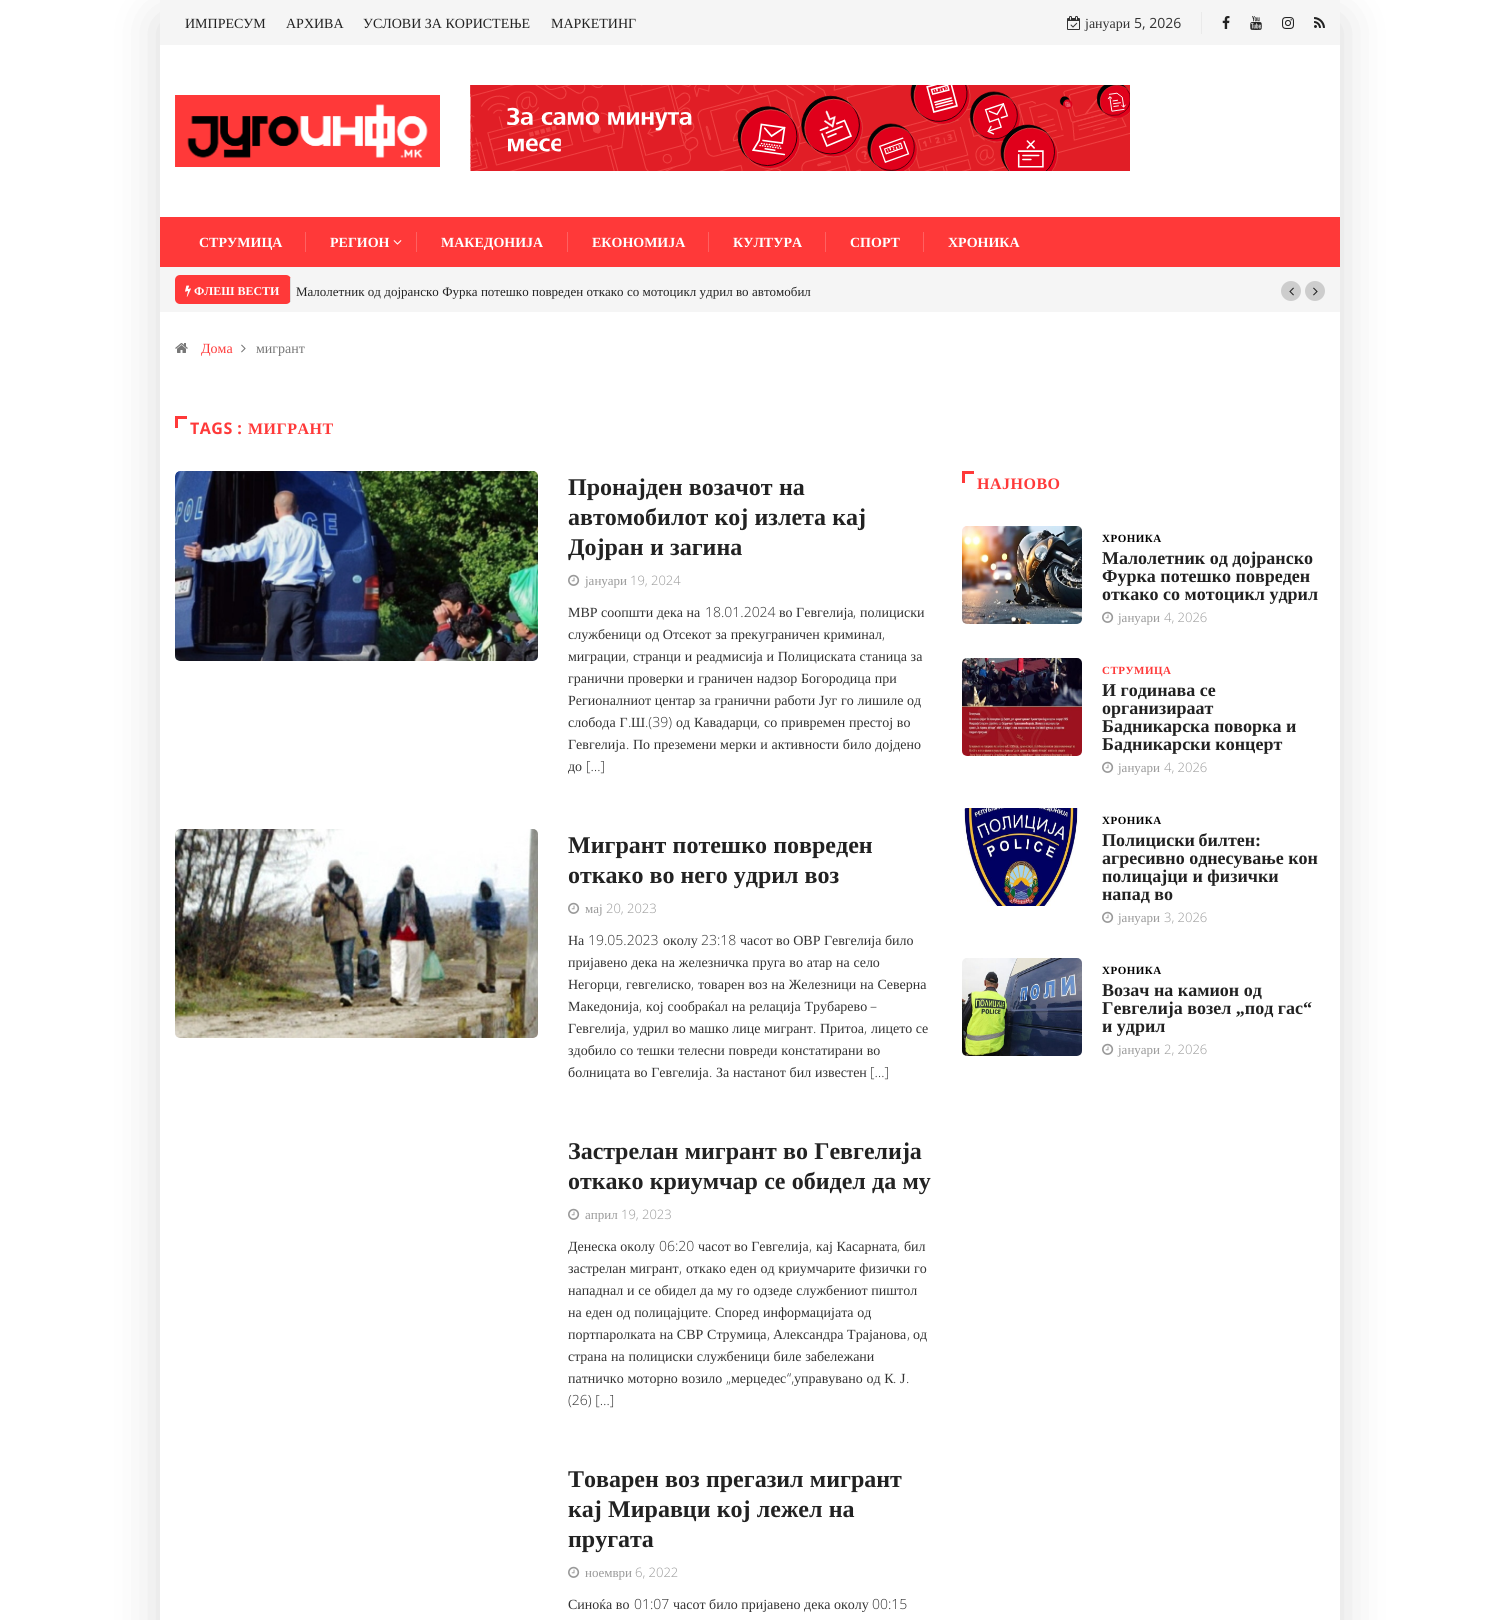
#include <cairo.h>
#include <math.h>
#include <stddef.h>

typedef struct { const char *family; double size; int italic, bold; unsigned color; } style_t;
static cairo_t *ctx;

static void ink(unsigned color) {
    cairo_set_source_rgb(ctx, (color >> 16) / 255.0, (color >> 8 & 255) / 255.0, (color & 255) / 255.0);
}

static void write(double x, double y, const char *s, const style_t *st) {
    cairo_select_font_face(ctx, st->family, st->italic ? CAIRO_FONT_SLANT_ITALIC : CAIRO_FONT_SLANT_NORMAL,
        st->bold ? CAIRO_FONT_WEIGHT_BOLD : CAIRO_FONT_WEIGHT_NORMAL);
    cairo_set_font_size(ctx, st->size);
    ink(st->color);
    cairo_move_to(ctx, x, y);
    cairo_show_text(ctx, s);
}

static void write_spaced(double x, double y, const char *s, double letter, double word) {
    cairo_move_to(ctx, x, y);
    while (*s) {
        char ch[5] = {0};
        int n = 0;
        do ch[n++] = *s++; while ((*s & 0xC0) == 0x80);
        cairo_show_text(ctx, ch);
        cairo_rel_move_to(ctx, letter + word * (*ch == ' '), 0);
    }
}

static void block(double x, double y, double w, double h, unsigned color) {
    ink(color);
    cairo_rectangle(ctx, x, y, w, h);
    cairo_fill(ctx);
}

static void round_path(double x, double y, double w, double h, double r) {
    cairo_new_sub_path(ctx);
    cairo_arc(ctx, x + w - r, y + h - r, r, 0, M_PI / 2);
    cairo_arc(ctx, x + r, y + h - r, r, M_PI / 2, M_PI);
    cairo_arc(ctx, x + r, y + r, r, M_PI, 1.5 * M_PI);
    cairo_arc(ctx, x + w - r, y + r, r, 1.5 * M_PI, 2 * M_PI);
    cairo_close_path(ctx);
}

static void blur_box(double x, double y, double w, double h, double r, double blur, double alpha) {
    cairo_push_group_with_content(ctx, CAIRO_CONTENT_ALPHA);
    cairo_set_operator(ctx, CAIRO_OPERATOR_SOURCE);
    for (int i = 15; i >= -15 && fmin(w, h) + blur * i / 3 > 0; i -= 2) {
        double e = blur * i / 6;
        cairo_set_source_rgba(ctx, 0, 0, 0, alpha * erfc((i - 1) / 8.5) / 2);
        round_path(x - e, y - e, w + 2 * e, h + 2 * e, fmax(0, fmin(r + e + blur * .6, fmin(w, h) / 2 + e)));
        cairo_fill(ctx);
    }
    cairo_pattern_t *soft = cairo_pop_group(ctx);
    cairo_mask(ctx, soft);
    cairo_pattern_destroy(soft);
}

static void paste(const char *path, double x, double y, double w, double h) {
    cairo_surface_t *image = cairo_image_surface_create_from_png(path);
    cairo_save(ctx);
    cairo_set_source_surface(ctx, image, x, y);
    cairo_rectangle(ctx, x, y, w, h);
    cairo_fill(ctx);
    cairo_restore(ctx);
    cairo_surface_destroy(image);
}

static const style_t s1 = {"Liberation Serif", 14, 0, 0, 0x222222};
static const style_t s2 = {"Liberation Serif", 14, 0, 0, 0x333333};
static const style_t s3 = {"Open Sans", 14, 0, 0, 0x333333};
static const style_t s4 = {"Liberation Serif", 14, 0, 1, 0xffffff};
static const style_t s5 = {"Liberation Serif", 12, 0, 1, 0xffffff};
static const style_t s6 = {"Liberation Serif", 14, 0, 0, 0xff3939};
static const style_t s7 = {"Liberation Serif", 14, 0, 0, 0x777777};
static const style_t s8 = {"Liberation Serif", 13, 0, 0, 0x999999};
static const style_t s9 = {"Open Sans Light", 13, 0, 0, 0x999999};
static const style_t s10 = {"Open Sans Light", 14, 0, 0, 0x333333};
static const style_t s11 = {"Liberation Serif", 24, 0, 1, 0x222222};
static const style_t s12 = {"Liberation Serif", 18, 0, 1, 0x222222};

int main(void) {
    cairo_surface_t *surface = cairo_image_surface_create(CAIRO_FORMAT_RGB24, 1500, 1620);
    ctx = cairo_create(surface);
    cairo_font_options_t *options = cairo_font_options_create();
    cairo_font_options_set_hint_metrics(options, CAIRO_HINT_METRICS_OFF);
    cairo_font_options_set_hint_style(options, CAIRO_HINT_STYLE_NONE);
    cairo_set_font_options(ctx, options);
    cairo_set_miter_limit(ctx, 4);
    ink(0xffffff);
    cairo_paint(ctx);
    cairo_save(ctx);
    cairo_set_fill_rule(ctx, CAIRO_FILL_RULE_EVEN_ODD);
    cairo_new_path(ctx);
    cairo_move_to(ctx, 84, 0);
    cairo_line_to(ctx, 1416, 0);
    cairo_line_to(ctx, 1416, 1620);
    cairo_line_to(ctx, 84, 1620);
    cairo_close_path(ctx);
    cairo_move_to(ctx, 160, 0);
    cairo_line_to(ctx, 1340, 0);
    cairo_line_to(ctx, 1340, 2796);
    cairo_line_to(ctx, 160, 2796);
    cairo_close_path(ctx);
    cairo_clip(ctx);
    ink(0x000000);
    blur_box(160, 20, 1180, 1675, 0, 25, 0.15);
    cairo_restore(ctx);
    block(160, 0, 1180, 45, 0xf5f5f5);
    write(185, 28, "ИМПРЕСУМ", &s1);
    write(286, 28, "АРХИВА", &s1);
    write(363, 28, "УСЛОВИ ЗА КОРИСТЕЊЕ", &s1);
    write(551, 28, "МАРКЕТИНГ", &s1);
    block(1201, 12, 1, 22, 0xeaeaea);
    paste("pic1.png", 1067, 16, 13, 14);
    write(1085, 28, "јануари", &s2);
    write(1134, 28, "5, 2026", &s3);
    paste("pic2.png", 1222, 16, 8, 13);
    paste("pic3.png", 1250, 16, 12, 14);
    paste("pic4.png", 1282, 17, 12, 12);
    paste("pic5.png", 1314, 17, 11, 11);
    paste("pic6.png", 175, 95, 265, 72);
    paste("pic7.png", 470, 85, 660, 86);
    block(160, 217, 1180, 50, 0xff3939);
    write(199, 247, "СТРУМИЦА", &s4);
    block(305, 232, 1, 20, 0xff6161);
    write(330, 247, "РЕГИОН", &s4);
    paste("pic8.png", 393, 240, 9, 5);
    block(416, 232, 1, 20, 0xff6161);
    write(441, 247, "МАКЕДОНИЈА", &s4);
    block(567, 232, 1, 20, 0xff6161);
    write(592, 247, "ЕКОНОМИЈА", &s4);
    block(708, 232, 1, 20, 0xff6161);
    write(733, 247, "КУЛТУРА", &s4);
    block(825, 232, 1, 20, 0xff6161);
    write(850, 247, "СПОРТ", &s4);
    block(923, 232, 1, 20, 0xff6161);
    write(948, 247, "ХРОНИКА", &s4);
    block(160, 267, 1180, 45, 0xf5f5f5);
    ink(0xff3939);
    round_path(175, 275, 116, 29, 5);
    cairo_fill(ctx);
    block(290, 278, 1, 24, 0xdedbdb);
    paste("pic9.png", 185, 285, 6, 12);
    write(194, 295, "ФЛЕШ ВЕСТИ", &s5);
    cairo_select_font_face(ctx, "Liberation Serif", CAIRO_FONT_SLANT_NORMAL, CAIRO_FONT_WEIGHT_NORMAL);
    cairo_set_font_size(ctx, 13);
    ink(0x222222);
    write_spaced(296, 296, "Малолетник од дојранско Фурка потешко повреден откако со мотоцикл удрил во автомобил", 0, 0.1);
    ink(0xcdcdcd);
    cairo_new_path(ctx);
    cairo_arc(ctx, 1291, 291, 10, 0, 2 * M_PI);
    cairo_fill(ctx);
    paste("pic10.png", 1289, 287, 5, 9);
    cairo_arc(ctx, 1315, 291, 10, 0, 2 * M_PI);
    cairo_fill(ctx);
    paste("pic11.png", 1313, 287, 5, 9);
    paste("pic12.png", 175, 343, 13, 10);
    write(201, 353, "Дома", &s6);
    paste("pic13.png", 241, 344, 5, 9);
    write(256, 353, "мигрант", &s7);
    block(175, 416, 3, 12, 0xff3939);
    block(175, 416, 12, 3, 0xff3939);
    cairo_select_font_face(ctx, "Open Sans", CAIRO_FONT_SLANT_NORMAL, CAIRO_FONT_WEIGHT_BOLD);
    cairo_set_font_size(ctx, 16);
    write_spaced(190, 434, "TAGS :", 0.5, 0);
    cairo_select_font_face(ctx, "Liberation Serif", CAIRO_FONT_SLANT_NORMAL, CAIRO_FONT_WEIGHT_BOLD);
    write_spaced(248, 434, "МИГРАНТ", 0.5, 0);
    paste("pic14.png", 175, 471, 363, 190);
    cairo_set_font_size(ctx, 24);
    ink(0x222222);
    write_spaced(568, 495, "Пронајден возачот на", 0, 0.25);
    write_spaced(568, 525, "автомобилот кој излета кај", 0, 0.25);
    write_spaced(568, 555, "Дојран и загина", 0, 0.25);
    paste("pic15.png", 568, 574, 12, 12);
    write(585, 585, "јануари", &s8);
    write(630, 585, "19, 2024", &s9);
    write(568, 617, "МВР соопшти дека на", &s2);
    write(705, 617, "18.01.2024", &s10);
    write(779, 617, "во Гевгелија", &s2);
    write(853, 617, ",", &s10);
    write(860, 617, "полициски", &s2);
    write_spaced(568, 639, "службеници од Отсекот за прекуграничен криминал", 0, 0.25);
    write(882, 639, ",", &s10);
    write(568, 661, "миграции", &s2);
    write(626, 661, ",", &s10);
    cairo_select_font_face(ctx, "Liberation Serif", CAIRO_FONT_SLANT_NORMAL, CAIRO_FONT_WEIGHT_NORMAL);
    write_spaced(633, 661, "странци и реадмисија и Полициската станица за", 0, 0.25);
    write_spaced(568, 683, "гранични проверки и граничен надзор Богородица при", 0, 0.25);
    write_spaced(568, 705, "Регионалниот центар за гранични работи Југ го лишиле од", 0, 0.25);
    write_spaced(568, 727, "слобода Г", 0, 0.25);
    write(628, 727, ".", &s10);
    write(631, 727, "Ш", &s2);
    write(645, 727, ".(39)", &s10);
    cairo_select_font_face(ctx, "Liberation Serif", CAIRO_FONT_SLANT_NORMAL, CAIRO_FONT_WEIGHT_NORMAL);
    write_spaced(676, 727, "од Кавадарци", 0, 0.25);
    write(757, 727, ",", &s10);
    cairo_select_font_face(ctx, "Liberation Serif", CAIRO_FONT_SLANT_NORMAL, CAIRO_FONT_WEIGHT_NORMAL);
    write_spaced(764, 727, "со привремен престој во", 0, 0.25);
    write(568, 749, "Гевгелија", &s2);
    write(626, 749, ".", &s10);
    cairo_select_font_face(ctx, "Liberation Serif", CAIRO_FONT_SLANT_NORMAL, CAIRO_FONT_WEIGHT_NORMAL);
    write_spaced(633, 749, "По преземени мерки и активности било дојдено", 0, 0.25);
    write(568, 771, "до", &s2);
    write(586, 771, "[…]", &s10);
    paste("pic16.png", 175, 829, 363, 209);
    cairo_select_font_face(ctx, "Liberation Serif", CAIRO_FONT_SLANT_NORMAL, CAIRO_FONT_WEIGHT_BOLD);
    cairo_set_font_size(ctx, 24);
    ink(0x222222);
    write_spaced(568, 853, "Мигрант потешко повреден", 0, 0.25);
    write(568, 883, "откако во него удрил воз", &s11);
    paste("pic15.png", 568, 902, 12, 12);
    write(585, 913, "мај", &s8);
    write(606, 913, "20, 2023", &s9);
    write(568, 945, "На", &s2);
    write(588, 945, "19.05.2023", &s10);
    write(663, 945, "околу", &s2);
    write(701, 945, "23:18", &s10);
    write(740, 945, "часот во ОВР Гевгелија било", &s2);
    write_spaced(568, 967, "пријавено дека на железничка пруга во атар на село", 0, 0.25);
    write(568, 989, "Негорци", &s2);
    write(619, 989, ",", &s10);
    write(626, 989, "гевгелиско", &s2);
    write(691, 989, ",", &s10);
    cairo_select_font_face(ctx, "Liberation Serif", CAIRO_FONT_SLANT_NORMAL, CAIRO_FONT_WEIGHT_NORMAL);
    write_spaced(698, 989, "товарен воз на Железници на Северна", 0, 0.25);
    write(568, 1011, "Македонија", &s2);
    write_spaced(646, 1011, "кој сообраќал на релација Трубарево", 0, 0.25);
    write(870, 1011, "–", &s10);
    write(639, 1011, ",", &s10);
    write(568, 1033, "Гевгелија", &s2);
    write(626, 1033, ",", &s10);
    write(633, 1033, "удрил во машко лице мигрант", &s2);
    write(813, 1033, ".", &s10);
    write(820, 1033, "Притоа", &s2);
    write(864, 1033, ",", &s10);
    write(871, 1033, "лицето се", &s2);
    write_spaced(568, 1055, "здобило со тешки телесни повреди констатирани во", 0, 0.25);
    write_spaced(568, 1077, "болницата во Гевгелија", 0, 0.25);
    write(709, 1077, ".", &s10);
    cairo_select_font_face(ctx, "Liberation Serif", CAIRO_FONT_SLANT_NORMAL, CAIRO_FONT_WEIGHT_NORMAL);
    write_spaced(716, 1077, "За настанот бил известен", 0, 0.25);
    write(870, 1077, "[…]", &s10);
    cairo_select_font_face(ctx, "Liberation Serif", CAIRO_FONT_SLANT_NORMAL, CAIRO_FONT_WEIGHT_BOLD);
    cairo_set_font_size(ctx, 24);
    ink(0x222222);
    write_spaced(568, 1159, "Застрелан мигрант во Гевгелија", 0, 0.25);
    write_spaced(568, 1189, "откако криумчар се обидел да му", 0, 0.25);
    paste("pic15.png", 568, 1208, 12, 12);
    write(585, 1219, "април", &s8);
    write(621, 1219, "19, 2023", &s9);
    write(568, 1251, "Денеска околу", &s2);
    write(659, 1251, "06:20", &s10);
    write(698, 1251, "часот во Гевгелија", &s2);
    write(809, 1251, ",", &s10);
    write(816, 1251, "кај Касарната", &s2);
    write(897, 1251, ",", &s10);
    write(904, 1251, "бил", &s2);
    write_spaced(568, 1273, "застрелан мигрант", 0, 0.25);
    write(679, 1273, ",", &s10);
    cairo_select_font_face(ctx, "Liberation Serif", CAIRO_FONT_SLANT_NORMAL, CAIRO_FONT_WEIGHT_NORMAL);
    write_spaced(686, 1273, "откако еден од криумчарите физички го", 0, 0.25);
    write_spaced(568, 1295, "нападнал и се обидел да му го одзеде службениот пиштол", 0, 0.25);
    write_spaced(568, 1317, "на еден од полицајците", 0, 0.25);
    write(708, 1317, ".", &s10);
    cairo_select_font_face(ctx, "Liberation Serif", CAIRO_FONT_SLANT_NORMAL, CAIRO_FONT_WEIGHT_NORMAL);
    write_spaced(715, 1317, "Според информацијата од", 0, 0.25);
    write_spaced(568, 1339, "портпаролката на СВР Струмица", 0, 0.25);
    write(767, 1339, ",", &s10);
    cairo_select_font_face(ctx, "Liberation Serif", CAIRO_FONT_SLANT_NORMAL, CAIRO_FONT_WEIGHT_NORMAL);
    write_spaced(773, 1339, "Александра Трајанова", 0, 0.25);
    write(907, 1339, ",", &s10);
    write(913, 1339, "од", &s2);
    write_spaced(568, 1361, "страна на полициски службеници биле забележани", 0, 0.25);
    write_spaced(568, 1383, "патничко моторно возило", 0, 0.25);
    write(726, 1383, "„", &s10);
    write(731, 1383, "мерцедес", &s2);
    write(787, 1383, "“,", &s10);
    cairo_select_font_face(ctx, "Liberation Serif", CAIRO_FONT_SLANT_NORMAL, CAIRO_FONT_WEIGHT_NORMAL);
    write_spaced(794, 1383, "управувано од К", 0, 0.25);
    write(893, 1383, ".", &s10);
    write(900, 1383, "Ј", &s2);
    write(906, 1383, ".", &s10);
    write(568, 1405, "(26) […]", &s10);
    cairo_select_font_face(ctx, "Liberation Serif", CAIRO_FONT_SLANT_NORMAL, CAIRO_FONT_WEIGHT_BOLD);
    cairo_set_font_size(ctx, 24);
    ink(0x222222);
    write_spaced(568, 1487, "Товарен воз прегазил мигрант", 0, 0.25);
    write_spaced(568, 1517, "кај Миравци кој лежел на", 0, 0.25);
    write(568, 1547, "пругата", &s11);
    paste("pic15.png", 568, 1566, 12, 12);
    write(585, 1577, "ноември", &s8);
    write(635, 1577, "6, 2022", &s9);
    write(568, 1609, "Синоќа во", &s2);
    write(634, 1609, "01:07", &s10);
    write(673, 1609, "часот било пријавено дека околу", &s2);
    write(872, 1609, "00:15", &s10);
    block(962, 471, 3, 12, 0xff3939);
    block(962, 471, 12, 3, 0xff3939);
    cairo_select_font_face(ctx, "Liberation Serif", CAIRO_FONT_SLANT_NORMAL, CAIRO_FONT_WEIGHT_BOLD);
    cairo_set_font_size(ctx, 16);
    write_spaced(977, 489, "НАЈНОВО", 0.5, 0);
    paste("pic17.png", 962, 526, 120, 98);
    cairo_set_font_size(ctx, 11);
    ink(0x000000);
    write_spaced(1102, 542, "ХРОНИКА", 0.5, 0);
    write(1102, 564, "Малолетник од дојранско", &s12);
    write(1102, 582, "Фурка потешко повреден", &s12);
    write(1102, 600, "откако со мотоцикл удрил", &s12);
    paste("pic15.png", 1102, 611, 12, 12);
    write(1118, 622, "јануари", &s8);
    write(1164, 622, "4, 2026", &s9);
    paste("pic18.png", 962, 658, 120, 98);
    cairo_select_font_face(ctx, "Liberation Serif", CAIRO_FONT_SLANT_NORMAL, CAIRO_FONT_WEIGHT_BOLD);
    cairo_set_font_size(ctx, 11);
    ink(0xff3939);
    write_spaced(1102, 674, "СТРУМИЦА", 0.5, 0);
    write(1102, 696, "И годинава се", &s12);
    write(1102, 714, "организираат", &s12);
    write(1102, 732, "Бадникарска поворка и", &s12);
    write(1102, 750, "Бадникарски концерт", &s12);
    paste("pic15.png", 1102, 761, 12, 12);
    write(1118, 772, "јануари", &s8);
    write(1164, 772, "4, 2026", &s9);
    paste("pic19.png", 964, 808, 116, 98);
    cairo_select_font_face(ctx, "Liberation Serif", CAIRO_FONT_SLANT_NORMAL, CAIRO_FONT_WEIGHT_BOLD);
    cairo_set_font_size(ctx, 11);
    ink(0x000000);
    write_spaced(1102, 824, "ХРОНИКА", 0.5, 0);
    cairo_set_font_size(ctx, 18);
    ink(0x222222);
    write_spaced(1102, 846, "Полициски билтен:", 0, -1);
    write(1102, 864, "агресивно однесување кон", &s12);
    write(1102, 882, "полицајци и физички", &s12);
    write(1102, 900, "напад во", &s12);
    paste("pic15.png", 1102, 911, 12, 12);
    write(1118, 922, "јануари", &s8);
    write(1164, 922, "3, 2026", &s9);
    paste("pic20.png", 962, 958, 120, 98);
    cairo_select_font_face(ctx, "Liberation Serif", CAIRO_FONT_SLANT_NORMAL, CAIRO_FONT_WEIGHT_BOLD);
    cairo_set_font_size(ctx, 11);
    ink(0x000000);
    write_spaced(1102, 974, "ХРОНИКА", 0.5, 0);
    write(1102, 996, "Возач на камион од", &s12);
    write(1102, 1014, "Гевгелија возел „под гас“", &s12);
    write(1102, 1032, "и удрил", &s12);
    paste("pic15.png", 1102, 1043, 12, 12);
    write(1118, 1054, "јануари", &s8);
    write(1164, 1054, "2, 2026", &s9);
    cairo_surface_write_to_png(surface, "screenshot.png");
    cairo_font_options_destroy(options);
    cairo_destroy(ctx);
    cairo_surface_destroy(surface);
    return 0;
}
